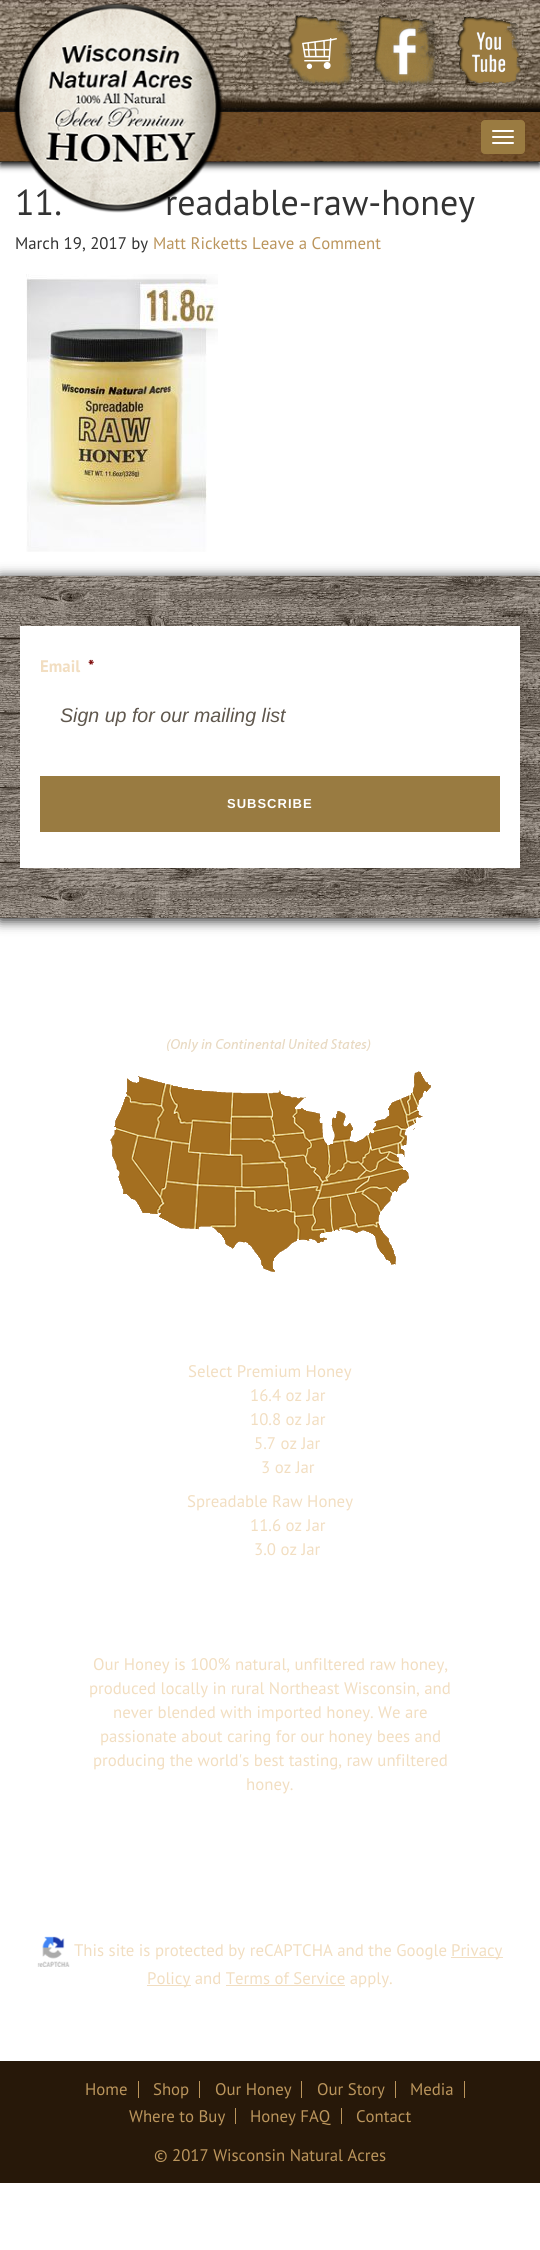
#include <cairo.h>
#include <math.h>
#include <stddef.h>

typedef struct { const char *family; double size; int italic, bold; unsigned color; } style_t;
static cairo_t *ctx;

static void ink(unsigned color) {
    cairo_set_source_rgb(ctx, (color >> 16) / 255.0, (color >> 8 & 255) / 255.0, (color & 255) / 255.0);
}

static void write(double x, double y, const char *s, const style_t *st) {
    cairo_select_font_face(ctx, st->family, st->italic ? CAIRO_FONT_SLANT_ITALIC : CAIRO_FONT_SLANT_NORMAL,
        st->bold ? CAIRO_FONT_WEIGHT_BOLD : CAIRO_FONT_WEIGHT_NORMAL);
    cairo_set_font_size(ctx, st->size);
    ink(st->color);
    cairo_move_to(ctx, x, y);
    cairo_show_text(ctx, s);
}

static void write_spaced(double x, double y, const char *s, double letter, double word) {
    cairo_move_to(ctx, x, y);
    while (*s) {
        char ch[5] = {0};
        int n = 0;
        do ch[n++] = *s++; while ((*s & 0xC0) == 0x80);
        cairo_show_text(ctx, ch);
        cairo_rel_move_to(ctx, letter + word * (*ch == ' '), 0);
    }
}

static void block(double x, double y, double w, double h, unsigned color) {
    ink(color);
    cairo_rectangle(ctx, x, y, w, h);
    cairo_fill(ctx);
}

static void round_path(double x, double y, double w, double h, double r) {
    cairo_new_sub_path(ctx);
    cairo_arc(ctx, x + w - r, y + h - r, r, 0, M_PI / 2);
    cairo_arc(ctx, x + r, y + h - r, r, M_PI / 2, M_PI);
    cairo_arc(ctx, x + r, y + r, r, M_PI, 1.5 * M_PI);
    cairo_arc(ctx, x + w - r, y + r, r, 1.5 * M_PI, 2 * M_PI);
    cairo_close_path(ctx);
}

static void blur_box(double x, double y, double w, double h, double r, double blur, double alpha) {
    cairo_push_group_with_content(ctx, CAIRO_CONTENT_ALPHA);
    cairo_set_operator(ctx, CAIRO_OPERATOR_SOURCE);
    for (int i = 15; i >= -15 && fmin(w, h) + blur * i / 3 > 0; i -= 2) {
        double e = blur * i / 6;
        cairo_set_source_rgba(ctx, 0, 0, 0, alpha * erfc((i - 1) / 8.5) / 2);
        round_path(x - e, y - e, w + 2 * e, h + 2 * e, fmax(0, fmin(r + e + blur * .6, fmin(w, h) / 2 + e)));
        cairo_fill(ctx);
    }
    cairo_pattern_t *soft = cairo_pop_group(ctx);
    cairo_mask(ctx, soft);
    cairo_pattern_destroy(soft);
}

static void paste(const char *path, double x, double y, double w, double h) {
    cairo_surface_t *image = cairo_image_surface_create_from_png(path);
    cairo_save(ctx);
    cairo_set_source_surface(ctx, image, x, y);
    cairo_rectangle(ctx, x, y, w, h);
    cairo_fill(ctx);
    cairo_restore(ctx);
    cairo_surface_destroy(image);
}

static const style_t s1 = {"PT Sans", 36, 0, 0, 0x333333};
static const style_t s2 = {"PT Sans", 16.8, 0, 0, 0x333333};
static const style_t s3 = {"PT Sans", 16.8, 0, 0, 0xbb955c};
static const style_t s4 = {"PT Sans", 16.8, 0, 1, 0xf2dec1};
static const style_t s5 = {"PT Sans", 16.8, 0, 1, 0x790000};
static const style_t s6 = {"Liberation Sans", 19.6, 1, 0, 0x5f574d};
static const style_t s7 = {"PT Sans", 16.8, 0, 0, 0xf2dec1};

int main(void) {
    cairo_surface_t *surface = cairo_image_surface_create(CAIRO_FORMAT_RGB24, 540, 2250);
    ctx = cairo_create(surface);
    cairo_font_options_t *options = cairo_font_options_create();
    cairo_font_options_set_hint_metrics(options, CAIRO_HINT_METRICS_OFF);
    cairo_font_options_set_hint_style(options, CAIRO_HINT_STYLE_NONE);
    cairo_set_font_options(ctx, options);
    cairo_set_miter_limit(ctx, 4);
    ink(0xffffff);
    cairo_paint(ctx);
    paste("pic1.png", 0, 0, 540, 112);
    ink(0x000000);
    blur_box(0, 115, 540, 50, 0, 3.5, 1);
    paste("pic6.png", 0, 112, 540, 50);
    write(15, 215, "11.", &s1);
    write(165, 215, "readable-raw-honey", &s1);
    paste("pic2.png", 13, 3, 210, 210);
    paste("pic3.png", 286, 15, 68, 73);
    paste("pic4.png", 373, 15, 64, 73);
    paste("pic5.png", 457, 17, 64, 71);
    ink(0x9a7b41);
    round_path(481.5, 120.5, 43, 33, 3.5);
    cairo_fill_preserve(ctx);
    cairo_set_line_width(ctx, 1);
    cairo_stroke(ctx);
    ink(0xffffff);
    round_path(492, 130, 22, 2, 1);
    cairo_fill(ctx);
    round_path(492, 136, 22, 2, 1);
    cairo_fill(ctx);
    round_path(492, 142, 22, 2, 1);
    cairo_fill(ctx);
    write(15, 249, "March 19, 2017 by", &s2);
    write(153, 249, "Matt Ricketts Leave a Comment", &s3);
    paste("pic7.png", 26, 274, 192, 278);
    ink(0x000000);
    blur_box(0, 578, 540, 342, 0, 6.5, 0.92);
    paste("pic8.png", 0, 576, 540, 342);
    block(20, 626, 500, 242, 0xffffff);
    write(40, 672, "Email", &s4);
    write(88, 672, "*", &s5);
    write(60, 722, "Sign up for our mailing list", &s6);
    block(40, 776, 460, 56, 0x997b41);
    cairo_select_font_face(ctx, "Liberation Sans", CAIRO_FONT_SLANT_NORMAL, CAIRO_FONT_WEIGHT_BOLD);
    cairo_set_font_size(ctx, 13);
    ink(0xffffff);
    write_spaced(227, 808, "SUBSCRIBE", 1, 0);
    paste("pic9.png", 110, 1039, 321, 233);
    write(188, 1377, "Select Premium Honey", &s7);
    write(250, 1401, "16.4 oz Jar", &s7);
    write(250, 1425, "10.8 oz Jar", &s7);
    write(254, 1449, "5.7 oz Jar", &s7);
    write(261, 1473, "3 oz Jar", &s7);
    write(187, 1507, "Spreadable Raw Honey", &s7);
    write(250, 1531, "11.6 oz Jar", &s7);
    write(254, 1555, "3.0 oz Jar", &s7);
    write(93, 1670, "Our Honey is 100% natural, unfiltered raw honey,", &s7);
    write(89, 1694, "produced locally in rural Northeast Wisconsin, and", &s7);
    write(113, 1718, "never blended with imported honey. We are", &s7);
    write(100, 1742, "passionate about caring for our honey bees and", &s7);
    write(93, 1766, "producing the world's best tasting, raw unfiltered", &s7);
    write(246, 1790, "honey.", &s7);
    paste("pic10.png", 37, 1936, 33, 31);
    write(74, 1956, "This site is protected by reCAPTCHA and the Google", &s7);
    block(451, 1957, 52, 1, 0xf2dec1);
    write(451, 1956, "Privacy", &s7);
    block(147, 1985, 44, 1, 0xf2dec1);
    write(147, 1984, "Policy and Terms of Service apply.", &s7);
    block(226, 1985, 119, 1, 0xf2dec1);
    block(0, 2061, 540, 122, 0x271809);
    block(138, 2081, 1, 17, 0xbb955c);
    write(85, 2095, "Home", &s3);
    block(199, 2081, 1, 17, 0xbb955c);
    write(153, 2095, "Shop", &s3);
    block(301, 2081, 1, 17, 0xbb955c);
    write(215, 2095, "Our Honey", &s3);
    block(395, 2081, 1, 17, 0xbb955c);
    write(317, 2095, "Our Story", &s3);
    block(464, 2081, 1, 17, 0xbb955c);
    write(410, 2095, "Media", &s3);
    block(235, 2108, 1, 16, 0xbb955c);
    write(129, 2122, "Where to Buy", &s3);
    block(341, 2108, 1, 16, 0xbb955c);
    write(250, 2122, "Honey FAQ", &s3);
    write(356, 2122, "Contact", &s3);
    write(154, 2161, "© 2017 Wisconsin Natural Acres", &s3);
    cairo_surface_write_to_png(surface, "screenshot.png");
    cairo_font_options_destroy(options);
    cairo_destroy(ctx);
    cairo_surface_destroy(surface);
    return 0;
}
